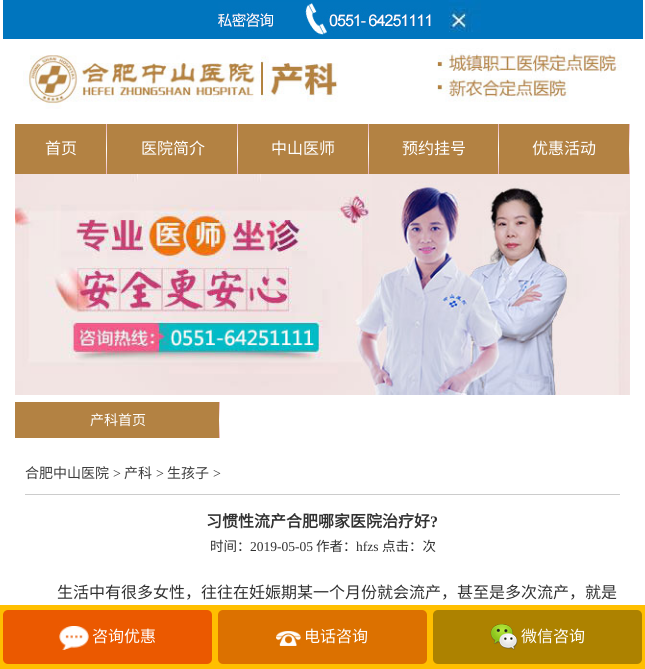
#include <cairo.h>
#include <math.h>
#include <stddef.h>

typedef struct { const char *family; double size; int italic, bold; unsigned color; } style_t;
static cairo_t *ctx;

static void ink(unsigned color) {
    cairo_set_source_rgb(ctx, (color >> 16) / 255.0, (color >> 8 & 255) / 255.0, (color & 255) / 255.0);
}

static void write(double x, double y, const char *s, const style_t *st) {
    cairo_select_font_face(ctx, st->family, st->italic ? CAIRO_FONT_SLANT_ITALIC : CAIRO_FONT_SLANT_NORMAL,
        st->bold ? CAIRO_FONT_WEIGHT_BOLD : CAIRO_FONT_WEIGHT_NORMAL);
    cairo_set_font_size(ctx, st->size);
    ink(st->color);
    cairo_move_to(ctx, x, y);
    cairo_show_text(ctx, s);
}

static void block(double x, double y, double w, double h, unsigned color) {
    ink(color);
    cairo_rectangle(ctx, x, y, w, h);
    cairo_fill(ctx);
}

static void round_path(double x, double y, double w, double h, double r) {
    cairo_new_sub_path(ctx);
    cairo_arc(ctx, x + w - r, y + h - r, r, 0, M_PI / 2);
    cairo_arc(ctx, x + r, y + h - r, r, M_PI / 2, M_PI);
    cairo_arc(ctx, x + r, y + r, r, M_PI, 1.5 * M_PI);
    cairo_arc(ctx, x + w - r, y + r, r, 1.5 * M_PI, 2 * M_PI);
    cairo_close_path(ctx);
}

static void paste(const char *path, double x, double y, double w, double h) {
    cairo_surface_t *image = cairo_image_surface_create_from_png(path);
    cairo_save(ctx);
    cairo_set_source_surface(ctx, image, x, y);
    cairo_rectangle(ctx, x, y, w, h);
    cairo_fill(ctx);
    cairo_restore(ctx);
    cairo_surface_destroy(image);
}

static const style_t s1 = {"Noto Sans CJK SC", 16, 0, 0, 0xffffff};
static const style_t s2 = {"Noto Sans CJK SC", 14, 0, 0, 0xffffff};
static const style_t s3 = {"Noto Sans CJK SC", 14, 0, 0, 0x3c3c3c};
static const style_t s4 = {"Liberation Serif", 14, 0, 0, 0x313131};
static const style_t s5 = {"Noto Sans CJK SC", 16, 0, 1, 0x313131};
static const style_t s6 = {"Liberation Serif", 16, 0, 1, 0x313131};
static const style_t s7 = {"Noto Sans CJK SC", 13.5, 0, 0, 0x313131};
static const style_t s8 = {"Liberation Serif", 13.5, 0, 0, 0x313131};
static const style_t s9 = {"Noto Sans CJK SC", 16, 0, 0, 0x313131};

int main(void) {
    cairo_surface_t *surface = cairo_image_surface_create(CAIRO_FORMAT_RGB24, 645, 669);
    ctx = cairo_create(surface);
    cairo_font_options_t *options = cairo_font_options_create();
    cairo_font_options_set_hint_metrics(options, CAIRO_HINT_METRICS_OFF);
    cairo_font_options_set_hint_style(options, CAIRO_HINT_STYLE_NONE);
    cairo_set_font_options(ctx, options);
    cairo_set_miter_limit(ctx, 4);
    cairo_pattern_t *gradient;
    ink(0xffffff);
    cairo_paint(ctx);
    paste("pic1.png", 23, 48, 599, 61);
    block(15, 124, 91, 50, 0xb38243);
    write(45, 154, "首页", &s1);
    gradient = cairo_pattern_create_linear(107, 174, 107, 124);
    cairo_pattern_add_color_stop_rgba(gradient, 0, 0.918, 0.702, 0.733, 1);
    cairo_pattern_add_color_stop_rgba(gradient, 0.5, 1, 1, 1, 1);
    cairo_pattern_add_color_stop_rgba(gradient, 1, 0.918, 0.702, 0.733, 1);
    cairo_set_source(ctx, gradient);
    cairo_pattern_destroy(gradient);
    cairo_rectangle(ctx, 106, 124, 1, 50);
    cairo_fill(ctx);
    block(107, 124, 130, 50, 0xb38243);
    write(141, 154, "医院简介", &s1);
    gradient = cairo_pattern_create_linear(238, 174, 238, 124);
    cairo_pattern_add_color_stop_rgba(gradient, 0, 0.918, 0.702, 0.733, 1);
    cairo_pattern_add_color_stop_rgba(gradient, 0.5, 1, 1, 1, 1);
    cairo_pattern_add_color_stop_rgba(gradient, 1, 0.918, 0.702, 0.733, 1);
    cairo_set_source(ctx, gradient);
    cairo_pattern_destroy(gradient);
    cairo_rectangle(ctx, 237, 124, 1, 50);
    cairo_fill(ctx);
    block(238, 124, 130, 50, 0xb38243);
    write(271, 154, "中山医师", &s1);
    gradient = cairo_pattern_create_linear(369, 174, 369, 124);
    cairo_pattern_add_color_stop_rgba(gradient, 0, 0.918, 0.702, 0.733, 1);
    cairo_pattern_add_color_stop_rgba(gradient, 0.5, 1, 1, 1, 1);
    cairo_pattern_add_color_stop_rgba(gradient, 1, 0.918, 0.702, 0.733, 1);
    cairo_set_source(ctx, gradient);
    cairo_pattern_destroy(gradient);
    cairo_rectangle(ctx, 368, 124, 1, 50);
    cairo_fill(ctx);
    block(369, 124, 129, 50, 0xb38243);
    write(402, 154, "预约挂号", &s1);
    gradient = cairo_pattern_create_linear(499, 174, 499, 124);
    cairo_pattern_add_color_stop_rgba(gradient, 0, 0.918, 0.702, 0.733, 1);
    cairo_pattern_add_color_stop_rgba(gradient, 0.5, 1, 1, 1, 1);
    cairo_pattern_add_color_stop_rgba(gradient, 1, 0.918, 0.702, 0.733, 1);
    cairo_set_source(ctx, gradient);
    cairo_pattern_destroy(gradient);
    cairo_rectangle(ctx, 498, 124, 1, 50);
    cairo_fill(ctx);
    block(499, 124, 130, 50, 0xb38243);
    write(532, 154, "优惠活动", &s1);
    gradient = cairo_pattern_create_linear(630, 174, 630, 124);
    cairo_pattern_add_color_stop_rgba(gradient, 0, 0.918, 0.702, 0.733, 1);
    cairo_pattern_add_color_stop_rgba(gradient, 0.5, 1, 1, 1, 1);
    cairo_pattern_add_color_stop_rgba(gradient, 1, 0.918, 0.702, 0.733, 1);
    cairo_set_source(ctx, gradient);
    cairo_pattern_destroy(gradient);
    cairo_rectangle(ctx, 629, 124, 1, 50);
    cairo_fill(ctx);
    paste("pic2.png", 15, 174, 615, 221);
    block(15, 402, 204, 36, 0xb38243);
    write(90, 425, "产科首页", &s2);
    gradient = cairo_pattern_create_linear(220, 438, 220, 402);
    cairo_pattern_add_color_stop_rgba(gradient, 0, 0.918, 0.702, 0.733, 1);
    cairo_pattern_add_color_stop_rgba(gradient, 0.5, 1, 1, 1, 1);
    cairo_pattern_add_color_stop_rgba(gradient, 1, 0.918, 0.702, 0.733, 1);
    cairo_set_source(ctx, gradient);
    cairo_pattern_destroy(gradient);
    cairo_rectangle(ctx, 219, 402, 1, 36);
    cairo_fill(ctx);
    block(25, 494, 595, 1, 0xcccccc);
    write(25, 478, "合肥中山医院", &s3);
    write(113, 478, ">", &s4);
    write(124, 478, "产科", &s3);
    write(156, 478, ">", &s4);
    write(167, 478, "生孩子", &s3);
    write(213, 478, ">", &s4);
    write(206, 527, "习惯性流产合肥哪家医院治疗好", &s5);
    write(430, 527, "?", &s6);
    write(210, 551, "时间：", &s7);
    write(250, 551, "2019-05-05", &s8);
    write(316, 551, "作者：", &s7);
    write(356, 551, "hfzs", &s8);
    write(382, 551, "点击：次", &s7);
    write(57, 598, "生活中有很多女性，往往在妊娠期某一个月份就会流产，甚至是多次流产，就是", &s9);
    block(3, 0, 640, 39, 0x0075be);
    paste("pic3.png", 218, 2, 213, 33);
    paste("pic4.png", 448, 0, 33, 33);
    block(0, 605, 645, 64, 0xffbf00);
    ink(0xeb5900);
    round_path(3, 610, 209, 54, 5);
    cairo_fill(ctx);
    paste("pic5.png", 59, 626, 30, 24);
    write(92, 642, "咨询优惠", &s1);
    ink(0xdc7100);
    round_path(218, 610, 209, 54, 5);
    cairo_fill(ctx);
    paste("pic6.png", 276, 631, 25, 15);
    write(304, 642, "电话咨询", &s1);
    ink(0xad8200);
    round_path(433, 610, 209, 54, 5);
    cairo_fill(ctx);
    paste("pic7.png", 490, 624, 28, 26);
    write(521, 642, "微信咨询", &s1);
    cairo_surface_write_to_png(surface, "screenshot.png");
    cairo_font_options_destroy(options);
    cairo_destroy(ctx);
    cairo_surface_destroy(surface);
    return 0;
}
